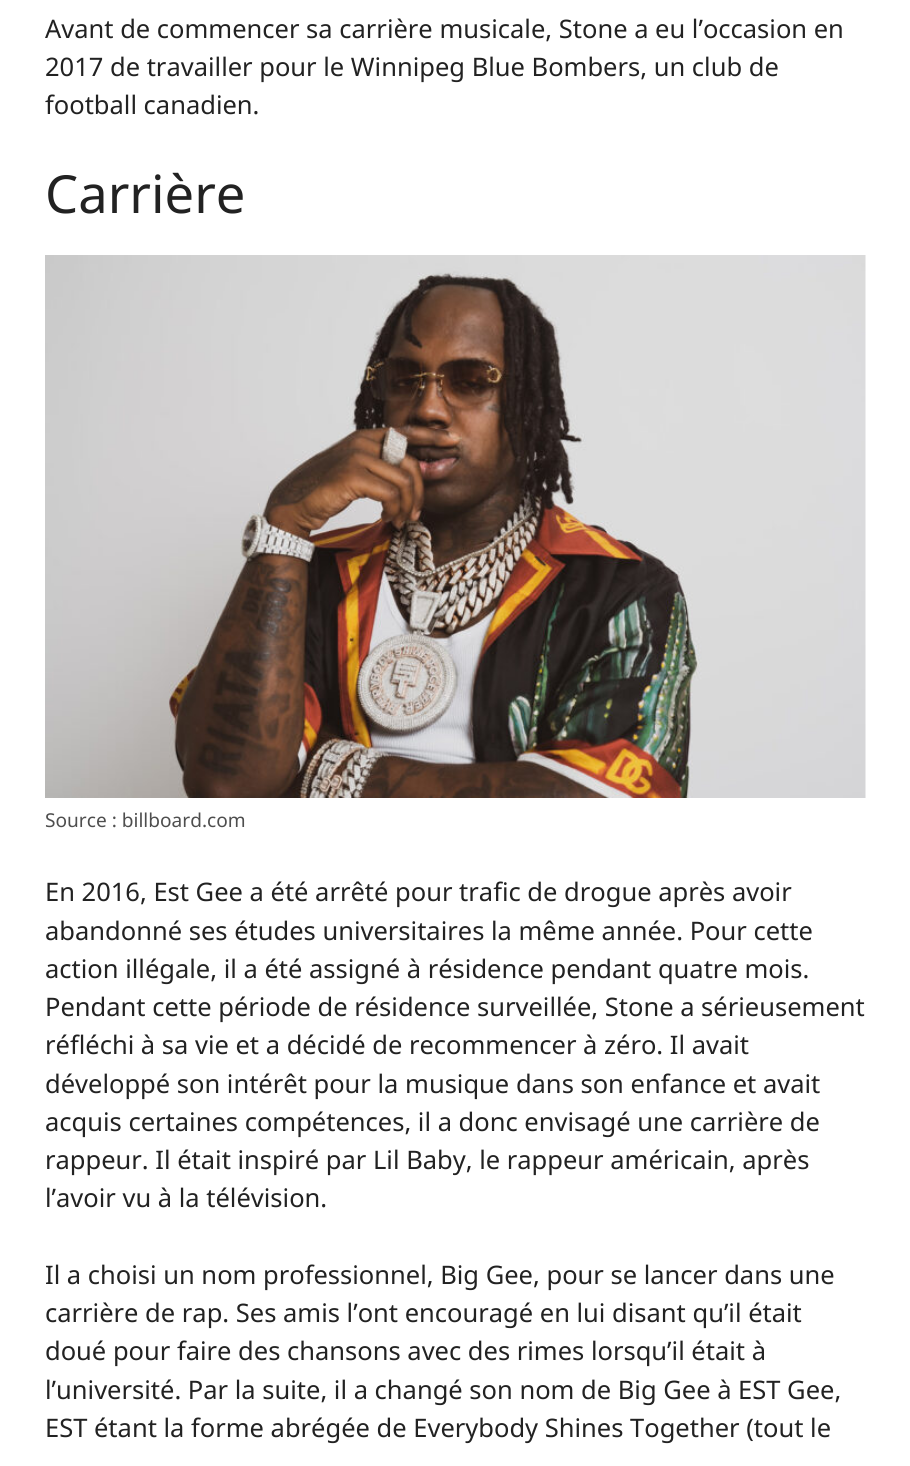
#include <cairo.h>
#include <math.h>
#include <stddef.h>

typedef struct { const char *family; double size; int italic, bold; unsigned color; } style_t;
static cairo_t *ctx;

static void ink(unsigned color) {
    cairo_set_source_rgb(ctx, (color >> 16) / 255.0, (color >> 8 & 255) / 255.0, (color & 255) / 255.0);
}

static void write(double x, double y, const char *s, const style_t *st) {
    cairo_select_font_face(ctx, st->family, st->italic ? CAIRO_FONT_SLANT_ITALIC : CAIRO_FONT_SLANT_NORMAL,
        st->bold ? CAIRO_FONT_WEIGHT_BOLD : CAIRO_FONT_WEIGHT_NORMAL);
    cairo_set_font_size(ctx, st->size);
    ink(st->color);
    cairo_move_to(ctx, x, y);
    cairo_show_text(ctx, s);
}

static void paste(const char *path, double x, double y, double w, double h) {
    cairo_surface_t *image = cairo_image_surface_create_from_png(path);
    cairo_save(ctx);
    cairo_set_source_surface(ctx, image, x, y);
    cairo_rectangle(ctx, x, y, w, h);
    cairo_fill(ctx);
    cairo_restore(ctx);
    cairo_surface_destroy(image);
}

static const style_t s1 = {"Noto Sans", 25.5, 0, 0, 0x222222};
static const style_t s2 = {"Noto Sans", 52.5, 0, 0, 0x222222};
static const style_t s3 = {"Noto Sans", 19.1, 0, 0, 0x4e4e4e};

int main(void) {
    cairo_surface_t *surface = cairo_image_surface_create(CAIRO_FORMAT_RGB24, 910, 1466);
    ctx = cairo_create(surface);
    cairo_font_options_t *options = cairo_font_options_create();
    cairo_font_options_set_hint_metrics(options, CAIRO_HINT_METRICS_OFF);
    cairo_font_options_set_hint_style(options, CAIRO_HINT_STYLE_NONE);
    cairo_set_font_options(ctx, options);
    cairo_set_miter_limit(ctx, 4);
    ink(0xffffff);
    cairo_paint(ctx);
    write(45, 38, "Avant de commencer sa carrière musicale, Stone a eu l’occasion en", &s1);
    write(45, 76, "2017 de travailler pour le Winnipeg Blue Bombers, un club de", &s1);
    write(45, 114, "football canadien.", &s1);
    write(45, 213, "Carrière", &s2);
    paste("pic1.png", 45, 255, 821, 543);
    write(45, 827, "Source : billboard.com", &s3);
    write(45, 901, "En 2016, Est Gee a été arrêté pour trafic de drogue après avoir", &s1);
    write(45, 940, "abandonné ses études universitaires la même année. Pour cette", &s1);
    write(45, 978, "action illégale, il a été assigné à résidence pendant quatre mois.", &s1);
    write(45, 1016, "Pendant cette période de résidence surveillée, Stone a sérieusement", &s1);
    write(45, 1054, "réfléchi à sa vie et a décidé de recommencer à zéro. Il avait", &s1);
    write(45, 1093, "développé son intérêt pour la musique dans son enfance et avait", &s1);
    write(45, 1131, "acquis certaines compétences, il a donc envisagé une carrière de", &s1);
    write(45, 1169, "rappeur. Il était inspiré par Lil Baby, le rappeur américain, après", &s1);
    write(45, 1207, "l’avoir vu à la télévision.", &s1);
    write(45, 1284, "Il a choisi un nom professionnel, Big Gee, pour se lancer dans une", &s1);
    write(45, 1322, "carrière de rap. Ses amis l’ont encouragé en lui disant qu’il était", &s1);
    write(45, 1360, "doué pour faire des chansons avec des rimes lorsqu’il était à", &s1);
    write(45, 1399, "l’université. Par la suite, il a changé son nom de Big Gee à EST Gee,", &s1);
    write(45, 1437, "EST étant la forme abrégée de Everybody Shines Together (tout le", &s1);
    cairo_surface_write_to_png(surface, "screenshot.png");
    cairo_font_options_destroy(options);
    cairo_destroy(ctx);
    cairo_surface_destroy(surface);
    return 0;
}
